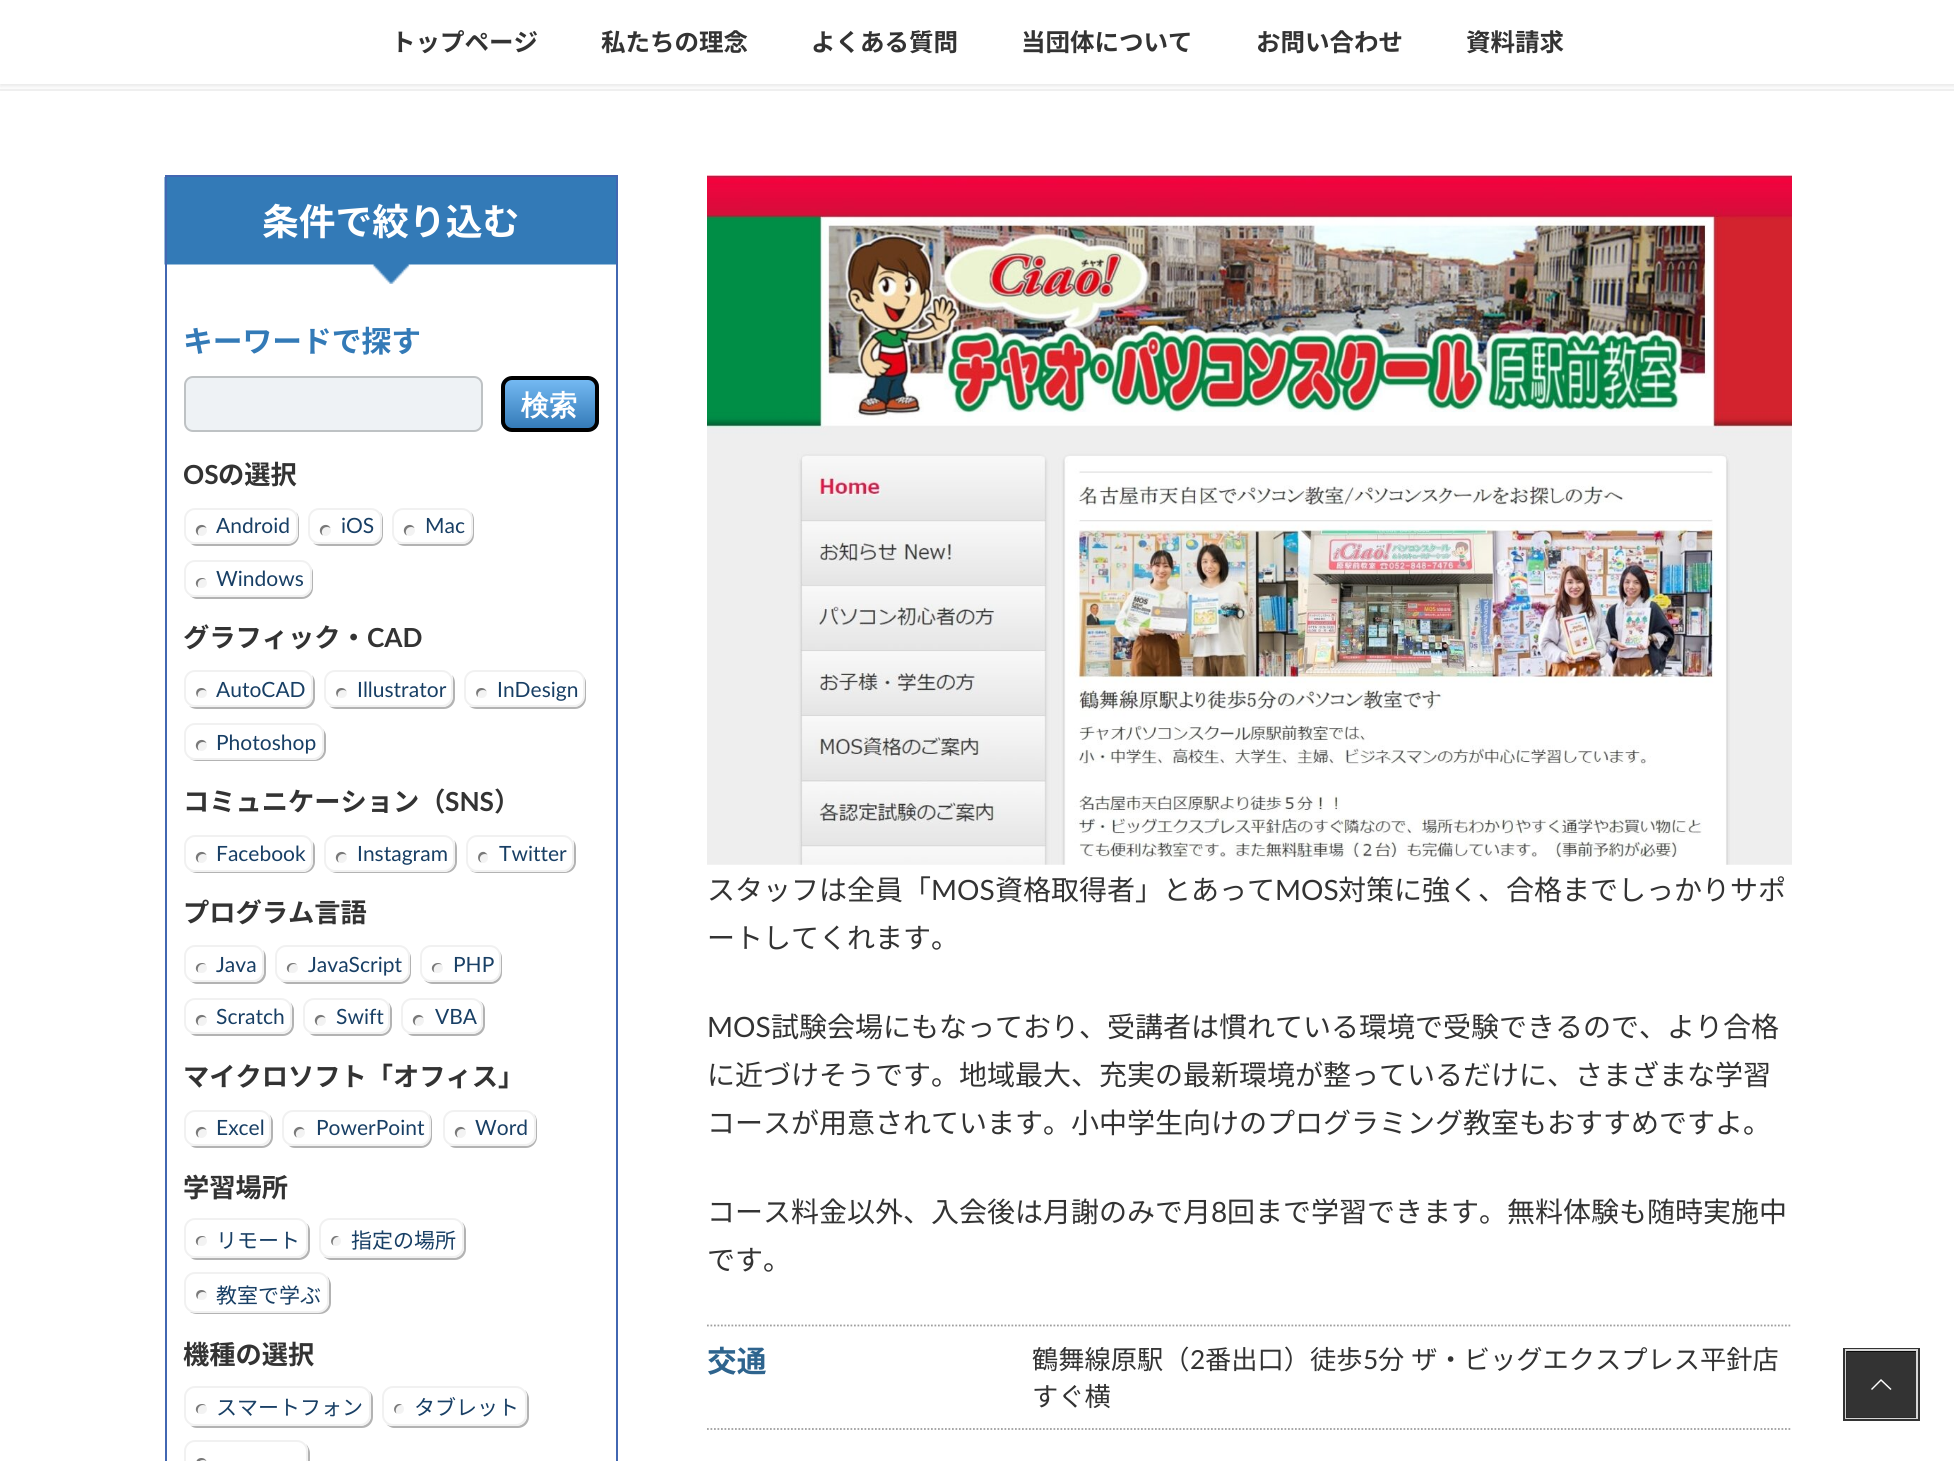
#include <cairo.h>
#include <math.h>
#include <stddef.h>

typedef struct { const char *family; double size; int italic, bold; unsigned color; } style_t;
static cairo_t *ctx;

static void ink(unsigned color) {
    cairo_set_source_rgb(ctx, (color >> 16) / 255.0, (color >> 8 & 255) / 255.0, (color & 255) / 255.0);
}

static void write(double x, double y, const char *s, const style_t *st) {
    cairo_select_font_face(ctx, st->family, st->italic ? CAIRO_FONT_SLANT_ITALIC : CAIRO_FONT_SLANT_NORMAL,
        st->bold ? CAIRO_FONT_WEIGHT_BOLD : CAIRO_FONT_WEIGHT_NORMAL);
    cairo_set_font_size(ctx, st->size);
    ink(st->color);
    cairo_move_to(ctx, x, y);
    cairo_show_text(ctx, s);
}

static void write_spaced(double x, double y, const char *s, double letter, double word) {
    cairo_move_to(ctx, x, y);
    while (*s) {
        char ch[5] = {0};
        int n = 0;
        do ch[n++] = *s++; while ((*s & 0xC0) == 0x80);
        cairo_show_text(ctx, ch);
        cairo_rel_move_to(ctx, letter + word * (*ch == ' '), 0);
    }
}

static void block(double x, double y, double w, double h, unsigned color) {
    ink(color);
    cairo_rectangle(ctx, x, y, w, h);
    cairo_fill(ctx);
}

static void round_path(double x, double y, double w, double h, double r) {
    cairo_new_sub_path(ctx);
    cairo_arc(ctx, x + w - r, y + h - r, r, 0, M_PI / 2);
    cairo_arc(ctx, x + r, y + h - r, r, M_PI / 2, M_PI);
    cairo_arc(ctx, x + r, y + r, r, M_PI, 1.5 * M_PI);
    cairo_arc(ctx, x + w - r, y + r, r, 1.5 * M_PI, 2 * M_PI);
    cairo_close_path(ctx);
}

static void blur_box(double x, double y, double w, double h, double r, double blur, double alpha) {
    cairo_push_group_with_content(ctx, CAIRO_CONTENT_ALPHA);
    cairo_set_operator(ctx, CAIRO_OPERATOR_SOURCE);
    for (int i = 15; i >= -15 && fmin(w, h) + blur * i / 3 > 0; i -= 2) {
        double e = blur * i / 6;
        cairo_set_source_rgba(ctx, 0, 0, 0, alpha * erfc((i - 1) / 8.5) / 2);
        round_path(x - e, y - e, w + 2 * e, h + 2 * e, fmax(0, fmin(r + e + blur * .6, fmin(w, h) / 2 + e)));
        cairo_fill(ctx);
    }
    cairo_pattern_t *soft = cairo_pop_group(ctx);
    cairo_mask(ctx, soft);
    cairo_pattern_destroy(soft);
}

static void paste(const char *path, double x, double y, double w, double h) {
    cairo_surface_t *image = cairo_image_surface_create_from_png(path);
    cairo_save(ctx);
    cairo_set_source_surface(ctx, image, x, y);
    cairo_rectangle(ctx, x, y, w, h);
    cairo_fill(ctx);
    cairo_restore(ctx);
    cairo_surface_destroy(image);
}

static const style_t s1 = {"Noto Sans JP", 24.5, 0, 1, 0x333333};
static const style_t s2 = {"Noto Sans JP", 36.75, 0, 1, 0xffffff};
static const style_t s3 = {"Noto Sans JP", 29.75, 0, 1, 0x337ab7};
static const style_t s4 = {"WenQuanYi Zen Hei", 28, 0, 1, 0xffffff};
static const style_t s5 = {"Lato", 26.25, 0, 1, 0x333333};
static const style_t s6 = {"Noto Sans JP", 26.25, 0, 1, 0x333333};
static const style_t s7 = {"Lato", 21, 0, 0, 0x183f65};
static const style_t s8 = {"Noto Sans JP", 21, 0, 0, 0x183f65};
static const style_t s9 = {"Noto Sans JP", 28, 0, 0, 0x333333};
static const style_t s10 = {"Lato", 28, 0, 0, 0x333333};
static const style_t s11 = {"Noto Sans JP", 29.75, 0, 1, 0x2e648e};
static const style_t s12 = {"Noto Sans JP", 26.25, 0, 0, 0x333333};
static const style_t s13 = {"Lato", 26.25, 0, 0, 0x333333};

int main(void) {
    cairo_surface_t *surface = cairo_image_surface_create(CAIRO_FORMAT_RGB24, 1954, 1461);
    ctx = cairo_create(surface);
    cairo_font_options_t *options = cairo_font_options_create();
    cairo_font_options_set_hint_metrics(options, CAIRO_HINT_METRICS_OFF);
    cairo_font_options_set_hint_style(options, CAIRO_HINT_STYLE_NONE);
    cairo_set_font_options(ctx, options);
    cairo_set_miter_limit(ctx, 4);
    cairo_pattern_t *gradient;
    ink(0xffffff);
    cairo_paint(ctx);
    block(0, 89, 1954, 2, 0xf0f0f0);
    ink(0x000000);
    blur_box(0, 2, 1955, 84, 0, 2.5, 0.1);
    block(0, 0, 1954, 84, 0xffffff);
    write(391, 51, "トップページ", &s1);
    write(601, 51, "私たちの理念", &s1);
    write(811, 51, "よくある質問", &s1);
    write(1021, 51, "当団体について", &s1);
    write(1256, 51, "お問い合わせ", &s1);
    write(1466, 51, "資料請求", &s1);
    paste("pic1.png", 164, 177, 452, 107);
    cairo_rectangle(ctx, 166, 176, 451, 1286);
    ink(0x4267b2);
    cairo_stroke(ctx);
    write(262, 235, "条件で絞り込む", &s2);
    write(183, 352, "キーワードで探す", &s3);
    ink(0xeef2f5);
    round_path(184, 376, 299, 56, 9);
    cairo_fill(ctx);
    round_path(185, 377, 297, 54, 8);
    cairo_set_source_rgba(ctx, 0, 0, 0, 0.2);
    cairo_stroke(ctx);
    cairo_save(ctx);
    round_path(501, 376, 98, 56, 11);
    cairo_clip(ctx);
    gradient = cairo_pattern_create_linear(550, 380, 550, 429);
    cairo_pattern_add_color_stop_rgba(gradient, 0, 0.455, 0.725, 0.949, 1);
    cairo_pattern_add_color_stop_rgba(gradient, 1, 0.2, 0.478, 0.718, 1);
    cairo_set_source(ctx, gradient);
    cairo_pattern_destroy(gradient);
    cairo_rectangle(ctx, 501, 380, 98, 49);
    cairo_fill(ctx);
    cairo_restore(ctx);
    round_path(503, 378, 94, 52, 9);
    ink(0x000000);
    cairo_set_line_width(ctx, 4);
    cairo_stroke(ctx);
    write(521, 415, "検索", &s4);
    write(183, 484, "OS", &s5);
    write(218, 484, "の選択", &s6);
    ink(0xb3b3b3);
    cairo_new_path(ctx);
    cairo_move_to(ctx, 190, 543);
    cairo_curve_to(ctx, 192, 545, 194, 546, 197, 546);
    cairo_line_to(ctx, 288, 546);
    cairo_curve_to(ctx, 294, 546, 299, 541, 299, 535);
    cairo_line_to(ctx, 299, 520);
    cairo_curve_to(ctx, 299, 517, 298, 514, 296, 512);
    cairo_curve_to(ctx, 297, 514, 298, 516, 298, 518);
    cairo_line_to(ctx, 298, 534);
    cairo_curve_to(ctx, 298, 540, 293, 544, 287, 544);
    cairo_line_to(ctx, 194, 544);
    cairo_curve_to(ctx, 193, 544, 191, 544, 190, 543);
    cairo_close_path(ctx);
    cairo_fill(ctx);
    ink(0xffffff);
    round_path(185, 509, 112, 34, 10);
    cairo_fill_preserve(ctx);
    ink(0xf1f1f1);
    cairo_set_line_width(ctx, 2);
    cairo_stroke(ctx);
    ink(0xf3f3f3);
    cairo_arc(ctx, 201.5, 530.5, 5.5, 0, 2 * M_PI);
    cairo_fill(ctx);
    cairo_set_source_rgba(ctx, 0, 0, 0, 0.5);
    cairo_new_path(ctx);
    cairo_move_to(ctx, 203, 527);
    cairo_curve_to(ctx, 204.5, 527, 205.5, 527.5, 206.5, 528);
    cairo_curve_to(ctx, 203.5, 522, 194.5, 525.5, 196, 532);
    cairo_curve_to(ctx, 196.5, 533.5, 197.5, 535, 199, 535.5);
    cairo_curve_to(ctx, 196.5, 532.5, 198, 527, 203, 527);
    cairo_close_path(ctx);
    cairo_fill(ctx);
    write(216, 533, "Android", &s7);
    ink(0xb3b3b3);
    cairo_new_path(ctx);
    cairo_move_to(ctx, 313, 543);
    cairo_curve_to(ctx, 315, 545, 318, 546, 321, 546);
    cairo_line_to(ctx, 372, 546);
    cairo_curve_to(ctx, 378, 546, 383, 541, 383, 535);
    cairo_line_to(ctx, 383, 520);
    cairo_curve_to(ctx, 383, 517, 382, 514, 380, 512);
    cairo_curve_to(ctx, 381, 514, 382, 516, 382, 518);
    cairo_line_to(ctx, 382, 534);
    cairo_curve_to(ctx, 382, 540, 377, 544, 371, 544);
    cairo_line_to(ctx, 318, 544);
    cairo_curve_to(ctx, 317, 544, 315, 544, 313, 543);
    cairo_close_path(ctx);
    cairo_fill(ctx);
    ink(0xffffff);
    round_path(309, 509, 72, 34, 10);
    cairo_fill_preserve(ctx);
    ink(0xf1f1f1);
    cairo_stroke(ctx);
    ink(0xf3f3f3);
    cairo_arc(ctx, 325.5, 530.5, 5.5, 0, 2 * M_PI);
    cairo_fill(ctx);
    cairo_set_source_rgba(ctx, 0, 0, 0, 0.5);
    cairo_new_path(ctx);
    cairo_move_to(ctx, 327, 527);
    cairo_curve_to(ctx, 328.5, 527, 329.5, 527.5, 330.5, 528);
    cairo_curve_to(ctx, 327.5, 522, 318.5, 525.5, 320, 532);
    cairo_curve_to(ctx, 320.5, 533.5, 321.5, 535, 323, 535.5);
    cairo_curve_to(ctx, 320.5, 532.5, 322, 527, 327, 527);
    cairo_close_path(ctx);
    cairo_fill(ctx);
    write(341, 533, "iOS", &s7);
    ink(0xb3b3b3);
    cairo_new_path(ctx);
    cairo_move_to(ctx, 397, 543);
    cairo_curve_to(ctx, 399, 545, 402, 546, 405, 546);
    cairo_line_to(ctx, 463, 546);
    cairo_curve_to(ctx, 469, 546, 474, 541, 474, 535);
    cairo_line_to(ctx, 474, 520);
    cairo_curve_to(ctx, 474, 517, 473, 514, 471, 512);
    cairo_curve_to(ctx, 472, 514, 472, 516, 472, 518);
    cairo_line_to(ctx, 472, 534);
    cairo_curve_to(ctx, 472, 540, 468, 544, 462, 544);
    cairo_line_to(ctx, 402, 544);
    cairo_curve_to(ctx, 401, 544, 399, 544, 397, 543);
    cairo_close_path(ctx);
    cairo_fill(ctx);
    ink(0xffffff);
    round_path(393, 509, 79, 34, 10);
    cairo_fill_preserve(ctx);
    ink(0xf1f1f1);
    cairo_stroke(ctx);
    ink(0xf3f3f3);
    cairo_arc(ctx, 409.5, 530.5, 5.5, 0, 2 * M_PI);
    cairo_fill(ctx);
    cairo_set_source_rgba(ctx, 0, 0, 0, 0.5);
    cairo_new_path(ctx);
    cairo_move_to(ctx, 411, 527);
    cairo_curve_to(ctx, 412.5, 527, 413.5, 527.5, 414.5, 528);
    cairo_curve_to(ctx, 411.5, 522, 402.5, 525.5, 404, 532);
    cairo_curve_to(ctx, 404.5, 533.5, 405.5, 535, 407, 535.5);
    cairo_curve_to(ctx, 404.5, 532.5, 406, 527, 411, 527);
    cairo_close_path(ctx);
    cairo_fill(ctx);
    write(425, 533, "Mac", &s7);
    ink(0xb3b3b3);
    cairo_new_path(ctx);
    cairo_move_to(ctx, 189, 595);
    cairo_curve_to(ctx, 191, 597, 194, 599, 197, 599);
    cairo_line_to(ctx, 302, 599);
    cairo_curve_to(ctx, 308, 599, 313, 594, 313, 588);
    cairo_line_to(ctx, 313, 573);
    cairo_curve_to(ctx, 313, 570, 312, 568, 310, 566);
    cairo_curve_to(ctx, 311, 567, 312, 569, 312, 570);
    cairo_line_to(ctx, 312, 586);
    cairo_curve_to(ctx, 312, 592, 307, 597, 301, 597);
    cairo_line_to(ctx, 194, 597);
    cairo_curve_to(ctx, 192, 597, 190, 596, 189, 595);
    cairo_close_path(ctx);
    cairo_fill(ctx);
    ink(0xffffff);
    round_path(185, 561, 126, 35, 10);
    cairo_fill_preserve(ctx);
    ink(0xf1f1f1);
    cairo_stroke(ctx);
    ink(0xf3f3f3);
    round_path(196, 578, 11, 10, 5);
    cairo_fill(ctx);
    cairo_set_source_rgba(ctx, 0, 0, 0, 0.5);
    cairo_new_path(ctx);
    cairo_move_to(ctx, 203, 579);
    cairo_line_to(ctx, 206, 579.5);
    cairo_curve_to(ctx, 205, 578.5, 203.5, 578, 202, 578);
    cairo_curve_to(ctx, 196, 578, 193.5, 584.5, 198.5, 587.5);
    cairo_curve_to(ctx, 196.5, 584, 198.5, 579, 203, 579);
    cairo_close_path(ctx);
    cairo_fill(ctx);
    write(216, 586, "Windows", &s7);
    write(183, 647, "グラフィック・", &s6);
    write(367, 647, "CAD", &s5);
    ink(0xb3b3b3);
    cairo_new_path(ctx);
    cairo_move_to(ctx, 189, 706);
    cairo_curve_to(ctx, 191, 708, 194, 709, 197, 709);
    cairo_line_to(ctx, 304, 709);
    cairo_curve_to(ctx, 310, 709, 315, 704, 315, 698);
    cairo_line_to(ctx, 315, 683);
    cairo_curve_to(ctx, 315, 680, 314, 677, 312, 675);
    cairo_curve_to(ctx, 313, 677, 313, 679, 313, 681);
    cairo_line_to(ctx, 313, 696);
    cairo_curve_to(ctx, 313, 702, 309, 707, 303, 707);
    cairo_line_to(ctx, 194, 707);
    cairo_curve_to(ctx, 192, 707, 191, 707, 189, 706);
    cairo_close_path(ctx);
    cairo_fill(ctx);
    ink(0xffffff);
    round_path(185, 671, 127, 35, 10);
    cairo_fill_preserve(ctx);
    ink(0xf1f1f1);
    cairo_stroke(ctx);
    ink(0xf3f3f3);
    round_path(196, 688, 11, 10, 5);
    cairo_fill(ctx);
    cairo_set_source_rgba(ctx, 0, 0, 0, 0.5);
    cairo_new_path(ctx);
    cairo_move_to(ctx, 203, 690);
    cairo_curve_to(ctx, 204.5, 690, 206, 690.5, 206.5, 691.5);
    cairo_curve_to(ctx, 205.5, 688, 201, 687, 198, 689);
    cairo_curve_to(ctx, 195.5, 691, 195.5, 695, 198, 697);
    cairo_curve_to(ctx, 197, 694, 198.5, 690, 203, 690);
    cairo_close_path(ctx);
    cairo_fill(ctx);
    write(216, 697, "AutoCAD", &s7);
    ink(0xb3b3b3);
    cairo_new_path(ctx);
    cairo_move_to(ctx, 329, 706);
    cairo_curve_to(ctx, 331, 708, 334, 709, 337, 709);
    cairo_line_to(ctx, 444, 709);
    cairo_curve_to(ctx, 450, 709, 455, 704, 455, 698);
    cairo_line_to(ctx, 455, 683);
    cairo_curve_to(ctx, 455, 680, 454, 677, 452, 675);
    cairo_curve_to(ctx, 453, 677, 453, 679, 453, 681);
    cairo_line_to(ctx, 453, 696);
    cairo_curve_to(ctx, 453, 702, 449, 707, 443, 707);
    cairo_line_to(ctx, 334, 707);
    cairo_curve_to(ctx, 332, 707, 331, 707, 329, 706);
    cairo_close_path(ctx);
    cairo_fill(ctx);
    ink(0xffffff);
    round_path(325, 671, 127, 35, 10);
    cairo_fill_preserve(ctx);
    ink(0xf1f1f1);
    cairo_stroke(ctx);
    ink(0xf3f3f3);
    round_path(336, 688, 11, 10, 5);
    cairo_fill(ctx);
    cairo_set_source_rgba(ctx, 0, 0, 0, 0.5);
    cairo_new_path(ctx);
    cairo_move_to(ctx, 343, 690);
    cairo_curve_to(ctx, 344.5, 690, 346, 690.5, 346.5, 691.5);
    cairo_curve_to(ctx, 345.5, 688, 341, 687, 338, 689);
    cairo_curve_to(ctx, 335.5, 691, 335.5, 695, 338, 697);
    cairo_curve_to(ctx, 337, 694, 338.5, 690, 343, 690);
    cairo_close_path(ctx);
    cairo_fill(ctx);
    write(357, 697, "Illustrator", &s7);
    ink(0xb3b3b3);
    cairo_new_path(ctx);
    cairo_move_to(ctx, 469, 706);
    cairo_curve_to(ctx, 471, 708, 474, 709, 477, 709);
    cairo_line_to(ctx, 575, 709);
    cairo_curve_to(ctx, 581, 709, 586, 704, 586, 698);
    cairo_line_to(ctx, 586, 683);
    cairo_curve_to(ctx, 586, 680, 585, 678, 583, 676);
    cairo_curve_to(ctx, 584, 677, 584, 679, 584, 681);
    cairo_line_to(ctx, 584, 696);
    cairo_curve_to(ctx, 584, 702, 580, 707, 574, 707);
    cairo_line_to(ctx, 474, 707);
    cairo_curve_to(ctx, 472, 707, 471, 707, 469, 706);
    cairo_close_path(ctx);
    cairo_fill(ctx);
    ink(0xffffff);
    round_path(465, 671, 119, 35, 10);
    cairo_fill_preserve(ctx);
    ink(0xf1f1f1);
    cairo_stroke(ctx);
    ink(0xf3f3f3);
    round_path(476, 688, 11, 10, 5);
    cairo_fill(ctx);
    cairo_set_source_rgba(ctx, 0, 0, 0, 0.5);
    cairo_new_path(ctx);
    cairo_move_to(ctx, 483, 690);
    cairo_curve_to(ctx, 484.5, 690, 486, 690.5, 486.5, 691.5);
    cairo_curve_to(ctx, 485.5, 688, 481, 687, 478, 689);
    cairo_curve_to(ctx, 475.5, 691, 475.5, 695, 478, 697);
    cairo_curve_to(ctx, 477, 694, 478.5, 690, 483, 690);
    cairo_close_path(ctx);
    cairo_fill(ctx);
    write(497, 697, "InDesign", &s7);
    ink(0xb3b3b3);
    cairo_new_path(ctx);
    cairo_move_to(ctx, 190, 759);
    cairo_curve_to(ctx, 192, 760, 194, 761, 197, 761);
    cairo_line_to(ctx, 315, 761);
    cairo_curve_to(ctx, 321, 761, 326, 756, 326, 750);
    cairo_line_to(ctx, 326, 736);
    cairo_curve_to(ctx, 326, 733, 324, 730, 322, 728);
    cairo_curve_to(ctx, 323, 729, 324, 731, 324, 733);
    cairo_line_to(ctx, 324, 749);
    cairo_curve_to(ctx, 324, 755, 319, 760, 313, 760);
    cairo_line_to(ctx, 194, 760);
    cairo_close_path(ctx);
    cairo_fill(ctx);
    ink(0xffffff);
    round_path(185, 724, 138, 35, 10);
    cairo_fill_preserve(ctx);
    ink(0xf1f1f1);
    cairo_stroke(ctx);
    ink(0xf3f3f3);
    cairo_arc(ctx, 201.5, 745.5, 5.5, 0, 2 * M_PI);
    cairo_fill(ctx);
    cairo_set_source_rgba(ctx, 0, 0, 0, 0.5);
    cairo_new_path(ctx);
    cairo_move_to(ctx, 203, 742);
    cairo_curve_to(ctx, 204.5, 742, 205.5, 742.5, 206.5, 743);
    cairo_curve_to(ctx, 203.5, 737, 194.5, 740.5, 196, 747);
    cairo_curve_to(ctx, 196.5, 748.5, 197.5, 750, 199, 750.5);
    cairo_curve_to(ctx, 196.5, 747.5, 198, 742, 203, 742);
    cairo_close_path(ctx);
    cairo_fill(ctx);
    write(216, 750, "Photoshop", &s7);
    write(183, 811, "コミュニケーション（", &s6);
    write(445, 811, "SNS", &s5);
    write(494, 811, "）", &s6);
    ink(0xb3b3b3);
    cairo_new_path(ctx);
    cairo_move_to(ctx, 190, 871);
    cairo_curve_to(ctx, 192, 872, 194, 873, 197, 873);
    cairo_line_to(ctx, 304, 873);
    cairo_curve_to(ctx, 310, 873, 315, 868, 315, 862);
    cairo_line_to(ctx, 315, 848);
    cairo_curve_to(ctx, 315, 845, 314, 843, 312, 841);
    cairo_curve_to(ctx, 313, 842, 313, 844, 313, 845);
    cairo_line_to(ctx, 313, 861);
    cairo_curve_to(ctx, 313, 867, 309, 872, 303, 872);
    cairo_line_to(ctx, 194, 872);
    cairo_close_path(ctx);
    cairo_fill(ctx);
    ink(0xffffff);
    round_path(185, 836, 127, 35, 10);
    cairo_fill_preserve(ctx);
    ink(0xf1f1f1);
    cairo_stroke(ctx);
    ink(0xf3f3f3);
    cairo_arc(ctx, 201.5, 857.5, 5.5, 0, 2 * M_PI);
    cairo_fill(ctx);
    cairo_set_source_rgba(ctx, 0, 0, 0, 0.5);
    cairo_new_path(ctx);
    cairo_move_to(ctx, 203, 854);
    cairo_curve_to(ctx, 204.5, 854, 205.5, 854.5, 206.5, 855);
    cairo_curve_to(ctx, 203.5, 849, 194.5, 852.5, 196, 859);
    cairo_curve_to(ctx, 196.5, 860.5, 197.5, 862, 199, 862.5);
    cairo_curve_to(ctx, 196.5, 859.5, 198, 854, 203, 854);
    cairo_close_path(ctx);
    cairo_fill(ctx);
    write(216, 861, "Facebook", &s7);
    ink(0xb3b3b3);
    cairo_new_path(ctx);
    cairo_move_to(ctx, 330, 871);
    cairo_curve_to(ctx, 332, 872, 334, 873, 337, 873);
    cairo_line_to(ctx, 446, 873);
    cairo_curve_to(ctx, 452, 873, 457, 868, 457, 862);
    cairo_line_to(ctx, 457, 848);
    cairo_curve_to(ctx, 457, 845, 456, 842, 454, 840);
    cairo_curve_to(ctx, 455, 842, 455, 843, 455, 845);
    cairo_line_to(ctx, 455, 861);
    cairo_curve_to(ctx, 455, 867, 450, 872, 444, 872);
    cairo_line_to(ctx, 334, 872);
    cairo_close_path(ctx);
    cairo_fill(ctx);
    ink(0xffffff);
    round_path(325, 836, 129, 35, 10);
    cairo_fill_preserve(ctx);
    ink(0xf1f1f1);
    cairo_stroke(ctx);
    ink(0xf3f3f3);
    cairo_arc(ctx, 341.5, 857.5, 5.5, 0, 2 * M_PI);
    cairo_fill(ctx);
    cairo_set_source_rgba(ctx, 0, 0, 0, 0.5);
    cairo_new_path(ctx);
    cairo_move_to(ctx, 343, 854);
    cairo_curve_to(ctx, 344.5, 854, 345.5, 854.5, 346.5, 855);
    cairo_curve_to(ctx, 343.5, 849, 334.5, 852.5, 336, 859);
    cairo_curve_to(ctx, 336.5, 860.5, 337.5, 862, 339, 862.5);
    cairo_curve_to(ctx, 336.5, 859.5, 338, 854, 343, 854);
    cairo_close_path(ctx);
    cairo_fill(ctx);
    write(357, 861, "Instagram", &s7);
    ink(0xb3b3b3);
    cairo_new_path(ctx);
    cairo_move_to(ctx, 470, 870);
    cairo_curve_to(ctx, 472, 872, 475, 873, 478, 873);
    cairo_line_to(ctx, 565, 873);
    cairo_curve_to(ctx, 571, 873, 576, 868, 576, 862);
    cairo_line_to(ctx, 576, 848);
    cairo_curve_to(ctx, 576, 845, 575, 842, 573, 840);
    cairo_curve_to(ctx, 574, 842, 574, 843, 574, 845);
    cairo_line_to(ctx, 574, 861);
    cairo_curve_to(ctx, 574, 867, 569, 872, 564, 872);
    cairo_line_to(ctx, 476, 872);
    cairo_curve_to(ctx, 474, 872, 472, 871, 470, 870);
    cairo_close_path(ctx);
    cairo_fill(ctx);
    ink(0xffffff);
    round_path(467, 836, 106, 35, 10);
    cairo_fill_preserve(ctx);
    ink(0xf1f1f1);
    cairo_stroke(ctx);
    ink(0xf3f3f3);
    round_path(478, 852, 10, 11, 5);
    cairo_fill(ctx);
    cairo_set_source_rgba(ctx, 0, 0, 0, 0.5);
    cairo_new_path(ctx);
    cairo_move_to(ctx, 485, 854);
    cairo_line_to(ctx, 487.5, 854.5);
    cairo_curve_to(ctx, 486.5, 853.5, 485.5, 852.5, 484.5, 852);
    cairo_curve_to(ctx, 478, 850.5, 475.5, 860.5, 481.5, 862.5);
    cairo_curve_to(ctx, 478.5, 860, 479.5, 854, 485, 854);
    cairo_close_path(ctx);
    cairo_fill(ctx);
    write(499, 861, "Twitter", &s7);
    write(183, 922, "プログラム言語", &s6);
    ink(0xb3b3b3);
    cairo_new_path(ctx);
    cairo_move_to(ctx, 189, 980);
    cairo_curve_to(ctx, 191, 982, 194, 984, 197, 984);
    cairo_line_to(ctx, 255, 984);
    cairo_curve_to(ctx, 261, 984, 266, 979, 266, 973);
    cairo_line_to(ctx, 266, 958);
    cairo_curve_to(ctx, 266, 955, 265, 952, 263, 950);
    cairo_curve_to(ctx, 264, 952, 264, 954, 264, 956);
    cairo_line_to(ctx, 264, 971);
    cairo_curve_to(ctx, 264, 977, 260, 982, 254, 982);
    cairo_line_to(ctx, 194, 982);
    cairo_curve_to(ctx, 192, 982, 190, 981, 189, 980);
    cairo_close_path(ctx);
    cairo_fill(ctx);
    ink(0xffffff);
    round_path(185, 946, 78, 35, 10);
    cairo_fill_preserve(ctx);
    ink(0xf1f1f1);
    cairo_stroke(ctx);
    ink(0xf3f3f3);
    round_path(196, 963, 11, 10, 5);
    cairo_fill(ctx);
    cairo_set_source_rgba(ctx, 0, 0, 0, 0.5);
    cairo_new_path(ctx);
    cairo_move_to(ctx, 203, 964);
    cairo_line_to(ctx, 206, 964.5);
    cairo_curve_to(ctx, 205, 963.5, 203.5, 963, 202, 963);
    cairo_curve_to(ctx, 196, 963, 193.5, 969.5, 198.5, 972.5);
    cairo_curve_to(ctx, 196.5, 969, 198.5, 964, 203, 964);
    cairo_close_path(ctx);
    cairo_fill(ctx);
    write(216, 972, "Java", &s7);
    ink(0xb3b3b3);
    cairo_new_path(ctx);
    cairo_move_to(ctx, 280, 980);
    cairo_curve_to(ctx, 282, 982, 285, 984, 288, 984);
    cairo_line_to(ctx, 400, 984);
    cairo_curve_to(ctx, 406, 984, 411, 979, 411, 973);
    cairo_line_to(ctx, 411, 958);
    cairo_curve_to(ctx, 411, 955, 410, 953, 408, 951);
    cairo_curve_to(ctx, 409, 952, 410, 954, 410, 956);
    cairo_line_to(ctx, 410, 971);
    cairo_curve_to(ctx, 410, 977, 405, 982, 399, 982);
    cairo_line_to(ctx, 285, 982);
    cairo_curve_to(ctx, 283, 982, 281, 981, 280, 980);
    cairo_close_path(ctx);
    cairo_fill(ctx);
    ink(0xffffff);
    round_path(276, 946, 133, 35, 10);
    cairo_fill_preserve(ctx);
    ink(0xf1f1f1);
    cairo_stroke(ctx);
    ink(0xf3f3f3);
    round_path(287, 963, 11, 10, 5);
    cairo_fill(ctx);
    cairo_set_source_rgba(ctx, 0, 0, 0, 0.5);
    cairo_new_path(ctx);
    cairo_move_to(ctx, 294, 964);
    cairo_line_to(ctx, 297, 964.5);
    cairo_curve_to(ctx, 296, 963.5, 294.5, 963, 293, 963);
    cairo_curve_to(ctx, 287, 963, 284.5, 969.5, 289.5, 972.5);
    cairo_curve_to(ctx, 287.5, 969, 289.5, 964, 294, 964);
    cairo_close_path(ctx);
    cairo_fill(ctx);
    write(308, 972, "JavaScript", &s7);
    ink(0xb3b3b3);
    cairo_new_path(ctx);
    cairo_move_to(ctx, 424, 980);
    cairo_curve_to(ctx, 426, 982, 429, 984, 433, 984);
    cairo_line_to(ctx, 491, 984);
    cairo_curve_to(ctx, 497, 984, 502, 979, 502, 973);
    cairo_line_to(ctx, 502, 958);
    cairo_curve_to(ctx, 502, 955, 501, 953, 499, 951);
    cairo_curve_to(ctx, 500, 952, 500, 954, 500, 956);
    cairo_line_to(ctx, 500, 971);
    cairo_curve_to(ctx, 500, 977, 496, 982, 490, 982);
    cairo_line_to(ctx, 430, 982);
    cairo_curve_to(ctx, 428, 982, 426, 981, 424, 980);
    cairo_close_path(ctx);
    cairo_fill(ctx);
    ink(0xffffff);
    round_path(421, 946, 79, 35, 10);
    cairo_fill_preserve(ctx);
    ink(0xf1f1f1);
    cairo_stroke(ctx);
    ink(0xf3f3f3);
    round_path(432, 963, 11, 10, 5);
    cairo_fill(ctx);
    cairo_set_source_rgba(ctx, 0, 0, 0, 0.5);
    cairo_new_path(ctx);
    cairo_move_to(ctx, 439, 964);
    cairo_line_to(ctx, 442, 964.5);
    cairo_curve_to(ctx, 441, 963.5, 439.5, 963, 438, 963);
    cairo_curve_to(ctx, 432, 963, 429.5, 969.5, 434.5, 972.5);
    cairo_curve_to(ctx, 432.5, 969, 434.5, 964, 439, 964);
    cairo_close_path(ctx);
    cairo_fill(ctx);
    write(453, 972, "PHP", &s7);
    ink(0xb3b3b3);
    cairo_new_path(ctx);
    cairo_move_to(ctx, 190, 1033);
    cairo_curve_to(ctx, 192, 1035, 194, 1036, 197, 1036);
    cairo_line_to(ctx, 283, 1036);
    cairo_curve_to(ctx, 289, 1036, 294, 1031, 294, 1025);
    cairo_line_to(ctx, 294, 1010);
    cairo_curve_to(ctx, 294, 1007, 292, 1004, 290, 1002);
    cairo_curve_to(ctx, 291, 1003, 292, 1006, 292, 1008);
    cairo_line_to(ctx, 292, 1024);
    cairo_curve_to(ctx, 292, 1030, 288, 1034, 282, 1034);
    cairo_line_to(ctx, 194, 1034);
    cairo_curve_to(ctx, 193, 1034, 191, 1034, 190, 1033);
    cairo_close_path(ctx);
    cairo_fill(ctx);
    ink(0xffffff);
    round_path(185, 999, 106, 34, 10);
    cairo_fill_preserve(ctx);
    ink(0xf1f1f1);
    cairo_stroke(ctx);
    ink(0xf3f3f3);
    cairo_arc(ctx, 201.5, 1020.5, 5.5, 0, 2 * M_PI);
    cairo_fill(ctx);
    cairo_set_source_rgba(ctx, 0, 0, 0, 0.5);
    cairo_new_path(ctx);
    cairo_move_to(ctx, 203, 1017);
    cairo_curve_to(ctx, 204.5, 1017, 205.5, 1017.5, 206.5, 1018);
    cairo_curve_to(ctx, 203.5, 1012, 194.5, 1015.5, 196, 1022);
    cairo_curve_to(ctx, 196.5, 1023.5, 197.5, 1025, 199, 1025.5);
    cairo_curve_to(ctx, 196.5, 1022.5, 198, 1017, 203, 1017);
    cairo_close_path(ctx);
    cairo_fill(ctx);
    write(216, 1024, "Scratch", &s7);
    ink(0xb3b3b3);
    cairo_new_path(ctx);
    cairo_move_to(ctx, 309, 1033);
    cairo_curve_to(ctx, 311, 1035, 313, 1036, 316, 1036);
    cairo_line_to(ctx, 381, 1036);
    cairo_curve_to(ctx, 387, 1036, 392, 1031, 392, 1025);
    cairo_line_to(ctx, 392, 1010);
    cairo_curve_to(ctx, 392, 1007, 390, 1004, 388, 1002);
    cairo_curve_to(ctx, 389, 1003, 390, 1006, 390, 1008);
    cairo_line_to(ctx, 390, 1024);
    cairo_curve_to(ctx, 390, 1030, 386, 1034, 380, 1034);
    cairo_line_to(ctx, 313, 1034);
    cairo_curve_to(ctx, 312, 1034, 310, 1034, 309, 1033);
    cairo_close_path(ctx);
    cairo_fill(ctx);
    ink(0xffffff);
    round_path(304, 999, 85, 34, 10);
    cairo_fill_preserve(ctx);
    ink(0xf1f1f1);
    cairo_stroke(ctx);
    ink(0xf3f3f3);
    cairo_arc(ctx, 320.5, 1020.5, 5.5, 0, 2 * M_PI);
    cairo_fill(ctx);
    cairo_set_source_rgba(ctx, 0, 0, 0, 0.5);
    cairo_new_path(ctx);
    cairo_move_to(ctx, 322, 1017);
    cairo_curve_to(ctx, 323.5, 1017, 324.5, 1017.5, 325.5, 1018);
    cairo_curve_to(ctx, 322.5, 1012, 313.5, 1015.5, 315, 1022);
    cairo_curve_to(ctx, 315.5, 1023.5, 316.5, 1025, 318, 1025.5);
    cairo_curve_to(ctx, 315.5, 1022.5, 317, 1017, 322, 1017);
    cairo_close_path(ctx);
    cairo_fill(ctx);
    write(336, 1024, "Swift", &s7);
    ink(0xb3b3b3);
    cairo_new_path(ctx);
    cairo_move_to(ctx, 407, 1033);
    cairo_curve_to(ctx, 409, 1035, 411, 1036, 414, 1036);
    cairo_line_to(ctx, 474, 1036);
    cairo_curve_to(ctx, 480, 1036, 485, 1031, 485, 1025);
    cairo_line_to(ctx, 485, 1010);
    cairo_curve_to(ctx, 485, 1006, 483, 1003, 480, 1001);
    cairo_curve_to(ctx, 482, 1003, 483, 1005, 483, 1008);
    cairo_line_to(ctx, 483, 1024);
    cairo_curve_to(ctx, 483, 1030, 478, 1034, 472, 1034);
    cairo_line_to(ctx, 411, 1034);
    cairo_curve_to(ctx, 410, 1034, 408, 1034, 407, 1033);
    cairo_close_path(ctx);
    cairo_fill(ctx);
    ink(0xffffff);
    round_path(402, 999, 80, 34, 10);
    cairo_fill_preserve(ctx);
    ink(0xf1f1f1);
    cairo_stroke(ctx);
    ink(0xf3f3f3);
    cairo_arc(ctx, 418.5, 1020.5, 5.5, 0, 2 * M_PI);
    cairo_fill(ctx);
    cairo_set_source_rgba(ctx, 0, 0, 0, 0.5);
    cairo_new_path(ctx);
    cairo_move_to(ctx, 420, 1017);
    cairo_curve_to(ctx, 421.5, 1017, 422.5, 1017.5, 423.5, 1018);
    cairo_curve_to(ctx, 420.5, 1012, 411.5, 1015.5, 413, 1022);
    cairo_curve_to(ctx, 413.5, 1023.5, 414.5, 1025, 416, 1025.5);
    cairo_curve_to(ctx, 413.5, 1022.5, 415, 1017, 420, 1017);
    cairo_close_path(ctx);
    cairo_fill(ctx);
    write(435, 1024, "VBA", &s7);
    write(183, 1086, "マイクロソフト「オフィス」", &s6);
    ink(0xb3b3b3);
    cairo_new_path(ctx);
    cairo_move_to(ctx, 190, 1145);
    cairo_curve_to(ctx, 192, 1147, 194, 1148, 197, 1148);
    cairo_line_to(ctx, 262, 1148);
    cairo_curve_to(ctx, 268, 1148, 273, 1143, 273, 1137);
    cairo_line_to(ctx, 273, 1122);
    cairo_curve_to(ctx, 273, 1119, 271, 1116, 269, 1114);
    cairo_curve_to(ctx, 270, 1115, 271, 1118, 271, 1120);
    cairo_line_to(ctx, 271, 1136);
    cairo_curve_to(ctx, 271, 1142, 267, 1146, 261, 1146);
    cairo_line_to(ctx, 194, 1146);
    cairo_curve_to(ctx, 193, 1146, 191, 1146, 190, 1145);
    cairo_close_path(ctx);
    cairo_fill(ctx);
    ink(0xffffff);
    round_path(185, 1111, 85, 34, 10);
    cairo_fill_preserve(ctx);
    ink(0xf1f1f1);
    cairo_stroke(ctx);
    ink(0xf3f3f3);
    cairo_arc(ctx, 201.5, 1132.5, 5.5, 0, 2 * M_PI);
    cairo_fill(ctx);
    cairo_set_source_rgba(ctx, 0, 0, 0, 0.5);
    cairo_new_path(ctx);
    cairo_move_to(ctx, 203, 1129);
    cairo_curve_to(ctx, 204.5, 1129, 205.5, 1129.5, 206.5, 1130);
    cairo_curve_to(ctx, 203.5, 1124, 194.5, 1127.5, 196, 1134);
    cairo_curve_to(ctx, 196.5, 1135.5, 197.5, 1137, 199, 1137.5);
    cairo_curve_to(ctx, 196.5, 1134.5, 198, 1129, 203, 1129);
    cairo_close_path(ctx);
    cairo_fill(ctx);
    write(216, 1135, "Excel", &s7);
    ink(0xb3b3b3);
    cairo_new_path(ctx);
    cairo_move_to(ctx, 288, 1145);
    cairo_curve_to(ctx, 290, 1147, 292, 1148, 295, 1148);
    cairo_line_to(ctx, 421, 1148);
    cairo_curve_to(ctx, 427, 1148, 432, 1143, 432, 1137);
    cairo_line_to(ctx, 432, 1122);
    cairo_curve_to(ctx, 432, 1119, 431, 1116, 429, 1114);
    cairo_curve_to(ctx, 430, 1116, 430, 1118, 430, 1120);
    cairo_line_to(ctx, 430, 1136);
    cairo_curve_to(ctx, 430, 1142, 426, 1146, 420, 1146);
    cairo_line_to(ctx, 292, 1146);
    cairo_curve_to(ctx, 291, 1146, 289, 1146, 288, 1145);
    cairo_close_path(ctx);
    cairo_fill(ctx);
    ink(0xffffff);
    round_path(283, 1111, 147, 34, 10);
    cairo_fill_preserve(ctx);
    ink(0xf1f1f1);
    cairo_stroke(ctx);
    ink(0xf3f3f3);
    cairo_arc(ctx, 299.5, 1132.5, 5.5, 0, 2 * M_PI);
    cairo_fill(ctx);
    cairo_set_source_rgba(ctx, 0, 0, 0, 0.5);
    cairo_new_path(ctx);
    cairo_move_to(ctx, 301, 1129);
    cairo_curve_to(ctx, 302.5, 1129, 303.5, 1129.5, 304.5, 1130);
    cairo_curve_to(ctx, 301.5, 1124, 292.5, 1127.5, 294, 1134);
    cairo_curve_to(ctx, 294.5, 1135.5, 295.5, 1137, 297, 1137.5);
    cairo_curve_to(ctx, 294.5, 1134.5, 296, 1129, 301, 1129);
    cairo_close_path(ctx);
    cairo_fill(ctx);
    write(316, 1135, "PowerPoint", &s7);
    ink(0xb3b3b3);
    cairo_new_path(ctx);
    cairo_move_to(ctx, 449, 1145);
    cairo_curve_to(ctx, 451, 1147, 453, 1148, 456, 1148);
    cairo_line_to(ctx, 526, 1148);
    cairo_curve_to(ctx, 532, 1148, 537, 1143, 537, 1137);
    cairo_line_to(ctx, 537, 1122);
    cairo_curve_to(ctx, 537, 1119, 536, 1116, 534, 1114);
    cairo_curve_to(ctx, 535, 1116, 536, 1118, 536, 1120);
    cairo_line_to(ctx, 536, 1136);
    cairo_curve_to(ctx, 536, 1142, 531, 1146, 525, 1146);
    cairo_line_to(ctx, 453, 1146);
    cairo_curve_to(ctx, 452, 1146, 450, 1146, 449, 1145);
    cairo_close_path(ctx);
    cairo_fill(ctx);
    ink(0xffffff);
    round_path(444, 1111, 91, 34, 10);
    cairo_fill_preserve(ctx);
    ink(0xf1f1f1);
    cairo_stroke(ctx);
    ink(0xf3f3f3);
    cairo_arc(ctx, 460.5, 1132.5, 5.5, 0, 2 * M_PI);
    cairo_fill(ctx);
    cairo_set_source_rgba(ctx, 0, 0, 0, 0.5);
    cairo_new_path(ctx);
    cairo_move_to(ctx, 462, 1129);
    cairo_curve_to(ctx, 463.5, 1129, 464.5, 1129.5, 465.5, 1130);
    cairo_curve_to(ctx, 462.5, 1124, 453.5, 1127.5, 455, 1134);
    cairo_curve_to(ctx, 455.5, 1135.5, 456.5, 1137, 458, 1137.5);
    cairo_curve_to(ctx, 455.5, 1134.5, 457, 1129, 462, 1129);
    cairo_close_path(ctx);
    cairo_fill(ctx);
    write(475, 1135, "Word", &s7);
    write(183, 1197, "学習場所", &s6);
    ink(0xb3b3b3);
    cairo_new_path(ctx);
    cairo_move_to(ctx, 190, 1257);
    cairo_curve_to(ctx, 192, 1259, 194, 1260, 197, 1260);
    cairo_line_to(ctx, 299, 1260);
    cairo_curve_to(ctx, 305, 1260, 310, 1255, 310, 1249);
    cairo_line_to(ctx, 310, 1231);
    cairo_curve_to(ctx, 310, 1228, 309, 1225, 306, 1223);
    cairo_curve_to(ctx, 307, 1224, 308, 1226, 308, 1228);
    cairo_line_to(ctx, 308, 1248);
    cairo_curve_to(ctx, 308, 1254, 303, 1258, 298, 1258);
    cairo_line_to(ctx, 194, 1258);
    cairo_curve_to(ctx, 193, 1258, 191, 1258, 190, 1257);
    cairo_close_path(ctx);
    cairo_fill(ctx);
    ink(0xffffff);
    round_path(185, 1219, 122, 38, 10);
    cairo_fill_preserve(ctx);
    ink(0xf1f1f1);
    cairo_stroke(ctx);
    ink(0xf3f3f3);
    round_path(196, 1236, 11, 10, 5);
    cairo_fill(ctx);
    cairo_set_source_rgba(ctx, 0, 0, 0, 0.5);
    cairo_new_path(ctx);
    cairo_move_to(ctx, 203, 1237);
    cairo_line_to(ctx, 206, 1237.5);
    cairo_curve_to(ctx, 205, 1236.5, 203.5, 1236, 202, 1236);
    cairo_curve_to(ctx, 196, 1236, 193.5, 1242.5, 198.5, 1245.5);
    cairo_curve_to(ctx, 196.5, 1242, 198.5, 1237, 203, 1237);
    cairo_close_path(ctx);
    cairo_fill(ctx);
    write(216, 1248, "リモート", &s8);
    ink(0xb3b3b3);
    cairo_new_path(ctx);
    cairo_move_to(ctx, 323, 1256);
    cairo_curve_to(ctx, 325, 1258, 328, 1260, 331, 1260);
    cairo_line_to(ctx, 455, 1260);
    cairo_curve_to(ctx, 461, 1260, 466, 1255, 466, 1249);
    cairo_line_to(ctx, 466, 1231);
    cairo_curve_to(ctx, 466, 1227, 464, 1224, 462, 1222);
    cairo_curve_to(ctx, 463, 1224, 464, 1226, 464, 1228);
    cairo_line_to(ctx, 464, 1248);
    cairo_curve_to(ctx, 464, 1254, 459, 1258, 453, 1258);
    cairo_line_to(ctx, 329, 1258);
    cairo_curve_to(ctx, 327, 1258, 324, 1257, 323, 1256);
    cairo_close_path(ctx);
    cairo_fill(ctx);
    ink(0xffffff);
    round_path(320, 1219, 143, 38, 10);
    cairo_fill_preserve(ctx);
    ink(0xf1f1f1);
    cairo_stroke(ctx);
    ink(0xf3f3f3);
    cairo_arc(ctx, 336, 1241, 5, 0, 2 * M_PI);
    cairo_fill(ctx);
    cairo_set_source_rgba(ctx, 0, 0, 0, 0.5);
    cairo_new_path(ctx);
    cairo_move_to(ctx, 338, 1237);
    cairo_line_to(ctx, 339, 1237);
    cairo_curve_to(ctx, 334, 1233, 327.5, 1241.5, 333.5, 1245.5);
    cairo_curve_to(ctx, 331.5, 1242, 333.5, 1237, 338, 1237);
    cairo_close_path(ctx);
    cairo_fill(ctx);
    write(351, 1248, "指定の場所", &s8);
    ink(0xb3b3b3);
    cairo_new_path(ctx);
    cairo_move_to(ctx, 190, 1312);
    cairo_curve_to(ctx, 192, 1313, 194, 1314, 197, 1314);
    cairo_line_to(ctx, 320, 1314);
    cairo_curve_to(ctx, 326, 1314, 331, 1309, 331, 1303);
    cairo_line_to(ctx, 331, 1285);
    cairo_curve_to(ctx, 331, 1282, 329, 1278, 327, 1276);
    cairo_curve_to(ctx, 328, 1278, 329, 1280, 329, 1283);
    cairo_line_to(ctx, 329, 1302);
    cairo_curve_to(ctx, 329, 1308, 324, 1312, 318, 1312);
    cairo_line_to(ctx, 194, 1312);
    cairo_close_path(ctx);
    cairo_fill(ctx);
    ink(0xffffff);
    round_path(185, 1273, 143, 39, 10);
    cairo_fill_preserve(ctx);
    ink(0xf1f1f1);
    cairo_stroke(ctx);
    ink(0xf3f3f3);
    round_path(196, 1290, 11, 10, 5);
    cairo_fill(ctx);
    cairo_set_source_rgba(ctx, 0, 0, 0, 0.5);
    cairo_new_path(ctx);
    cairo_move_to(ctx, 203, 1292);
    cairo_curve_to(ctx, 204.5, 1292, 206, 1292.5, 206.5, 1293.5);
    cairo_curve_to(ctx, 205.5, 1290, 201, 1289, 198, 1291);
    cairo_curve_to(ctx, 195.5, 1293, 195.5, 1297, 198, 1299);
    cairo_curve_to(ctx, 197, 1296, 198.5, 1292, 203, 1292);
    cairo_close_path(ctx);
    cairo_fill(ctx);
    write(216, 1303, "教室で学ぶ", &s8);
    write(183, 1364, "機種の選択", &s6);
    ink(0xb3b3b3);
    cairo_new_path(ctx);
    cairo_move_to(ctx, 190, 1425);
    cairo_curve_to(ctx, 192, 1427, 194, 1428, 197, 1428);
    cairo_line_to(ctx, 362, 1428);
    cairo_curve_to(ctx, 368, 1428, 373, 1423, 373, 1417);
    cairo_line_to(ctx, 373, 1399);
    cairo_curve_to(ctx, 373, 1396, 372, 1393, 369, 1391);
    cairo_curve_to(ctx, 370, 1392, 371, 1394, 371, 1396);
    cairo_line_to(ctx, 371, 1416);
    cairo_curve_to(ctx, 371, 1422, 366, 1426, 360, 1426);
    cairo_line_to(ctx, 194, 1426);
    cairo_curve_to(ctx, 193, 1426, 191, 1426, 190, 1425);
    cairo_close_path(ctx);
    cairo_fill(ctx);
    ink(0xffffff);
    round_path(185, 1387, 185, 38, 10);
    cairo_fill_preserve(ctx);
    ink(0xf1f1f1);
    cairo_stroke(ctx);
    ink(0xf3f3f3);
    round_path(196, 1404, 11, 10, 5);
    cairo_fill(ctx);
    cairo_set_source_rgba(ctx, 0, 0, 0, 0.5);
    cairo_new_path(ctx);
    cairo_move_to(ctx, 203, 1405);
    cairo_line_to(ctx, 206, 1405.5);
    cairo_curve_to(ctx, 205, 1404.5, 203.5, 1404, 202, 1404);
    cairo_curve_to(ctx, 196, 1404, 193.5, 1410.5, 198.5, 1413.5);
    cairo_curve_to(ctx, 196.5, 1410, 198.5, 1405, 203, 1405);
    cairo_close_path(ctx);
    cairo_fill(ctx);
    write(216, 1415, "スマートフォン", &s8);
    ink(0xb3b3b3);
    cairo_new_path(ctx);
    cairo_move_to(ctx, 386, 1424);
    cairo_curve_to(ctx, 388, 1426, 391, 1428, 394, 1428);
    cairo_line_to(ctx, 518, 1428);
    cairo_curve_to(ctx, 524, 1428, 529, 1423, 529, 1417);
    cairo_line_to(ctx, 529, 1399);
    cairo_curve_to(ctx, 529, 1395, 527, 1392, 525, 1390);
    cairo_curve_to(ctx, 526, 1392, 527, 1394, 527, 1396);
    cairo_line_to(ctx, 527, 1416);
    cairo_curve_to(ctx, 527, 1422, 522, 1426, 516, 1426);
    cairo_line_to(ctx, 392, 1426);
    cairo_curve_to(ctx, 390, 1426, 387, 1425, 386, 1424);
    cairo_close_path(ctx);
    cairo_fill(ctx);
    ink(0xffffff);
    round_path(383, 1387, 143, 38, 10);
    cairo_fill_preserve(ctx);
    ink(0xf1f1f1);
    cairo_stroke(ctx);
    ink(0xf3f3f3);
    cairo_arc(ctx, 399, 1409, 5, 0, 2 * M_PI);
    cairo_fill(ctx);
    cairo_set_source_rgba(ctx, 0, 0, 0, 0.5);
    cairo_new_path(ctx);
    cairo_move_to(ctx, 401, 1405);
    cairo_line_to(ctx, 402, 1405);
    cairo_curve_to(ctx, 397, 1401, 390.5, 1409.5, 396.5, 1413.5);
    cairo_curve_to(ctx, 394.5, 1410, 396.5, 1405, 401, 1405);
    cairo_close_path(ctx);
    cairo_fill(ctx);
    write(414, 1415, "タブレット", &s8);
    ink(0xb3b3b3);
    cairo_new_path(ctx);
    cairo_move_to(ctx, 190, 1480);
    cairo_curve_to(ctx, 192, 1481, 194, 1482, 197, 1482);
    cairo_line_to(ctx, 299, 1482);
    cairo_curve_to(ctx, 305, 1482, 310, 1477, 310, 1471);
    cairo_line_to(ctx, 310, 1453);
    cairo_curve_to(ctx, 310, 1450, 308, 1446, 306, 1444);
    cairo_curve_to(ctx, 307, 1446, 308, 1448, 308, 1451);
    cairo_line_to(ctx, 308, 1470);
    cairo_curve_to(ctx, 308, 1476, 303, 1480, 298, 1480);
    cairo_line_to(ctx, 194, 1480);
    cairo_close_path(ctx);
    cairo_fill(ctx);
    ink(0xffffff);
    round_path(185, 1441, 122, 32, 10);
    cairo_fill_preserve(ctx);
    ink(0xf1f1f1);
    cairo_stroke(ctx);
    ink(0xf3f3f3);
    round_path(196, 1458, 11, 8, 5);
    cairo_fill(ctx);
    cairo_set_source_rgba(ctx, 0, 0, 0, 0.5);
    cairo_new_path(ctx);
    cairo_move_to(ctx, 203, 1460);
    cairo_curve_to(ctx, 204.5, 1460, 206, 1460.5, 206.5, 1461.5);
    cairo_curve_to(ctx, 205.5, 1458, 201, 1457, 198, 1459);
    cairo_curve_to(ctx, 195.5, 1461, 195.5, 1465, 198, 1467);
    cairo_curve_to(ctx, 197, 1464, 198.5, 1460, 203, 1460);
    cairo_close_path(ctx);
    cairo_fill(ctx);
    paste("pic2.png", 707, 175, 1085, 690);
    write(707, 900, "スタッフは全員「", &s9);
    write(931, 900, "MOS", &s10);
    write(995, 900, "資格取得者」とあって", &s9);
    write(1275, 900, "MOS", &s10);
    write(1338, 900, "対策に強く、合格までしっかりサポ", &s9);
    write(707, 948, "ートしてくれます。", &s9);
    write(707, 1037, "MOS", &s10);
    write(771, 1037, "試験会場にもなっており、受講者は慣れている環境で受験できるので、より合格", &s9);
    write(707, 1085, "に近づけそうです。地域最大、充実の最新環境が整っているだけに、さまざまな学習", &s9);
    write(707, 1133, "コースが用意されています。小中学生向けのプログラミング教室もおすすめですよ。", &s9);
    write(707, 1222, "コース料金以外、入会後は月謝のみで月", &s9);
    write(1211, 1222, "8", &s10);
    write(1227, 1222, "回まで学習できます。無料体験も随時実施中", &s9);
    write(707, 1270, "です。", &s9);
    cairo_new_path(ctx);
    cairo_move_to(ctx, 707, 1325.5);
    cairo_line_to(ctx, 1032.5, 1325.5);
    ink(0x9f9f9f);
    cairo_set_line_width(ctx, 1.8);
    cairo_set_dash(ctx, (double[]){1.75, 1.75}, 2, 0);
    cairo_stroke(ctx);
    write(707, 1372, "交通", &s11);
    cairo_new_path(ctx);
    cairo_move_to(ctx, 1032.5, 1325.5);
    cairo_line_to(ctx, 1792, 1325.5);
    ink(0x9f9f9f);
    cairo_stroke(ctx);
    write(1032, 1369, "鶴舞線原駅（", &s12);
    write(1190, 1369, "2", &s13);
    write(1205, 1369, "番出口）徒歩", &s12);
    write(1363, 1369, "5", &s13);
    cairo_select_font_face(ctx, "Noto Sans JP", CAIRO_FONT_SLANT_NORMAL, CAIRO_FONT_WEIGHT_NORMAL);
    write_spaced(1378, 1369, "分 ザ・ビッグエクスプレス平針店", 0, 1);
    write(1032, 1406, "すぐ横", &s12);
    cairo_new_path(ctx);
    cairo_move_to(ctx, 707, 1429);
    cairo_line_to(ctx, 1032.5, 1429);
    ink(0x9f9f9f);
    cairo_stroke(ctx);
    cairo_new_path(ctx);
    cairo_move_to(ctx, 1032.5, 1429);
    cairo_line_to(ctx, 1792, 1429);
    cairo_stroke(ctx);
    cairo_rectangle(ctx, 1845, 1350, 73, 69);
    ink(0x333333);
    cairo_set_line_width(ctx, 4);
    cairo_set_dash(ctx, NULL, 0, 0);
    cairo_stroke(ctx);
    cairo_rectangle(ctx, 1846, 1350, 71, 68);
    ink(0xd6d6d6);
    cairo_set_line_width(ctx, 2);
    cairo_stroke(ctx);
    cairo_set_source_rgba(ctx, 0, 0, 0, 0.8);
    cairo_rectangle(ctx, 1846, 1351, 70, 67);
    cairo_fill(ctx);
    ink(0xffffff);
    cairo_new_path(ctx);
    cairo_move_to(ctx, 1891.5, 1389);
    cairo_line_to(ctx, 1890.5, 1390);
    cairo_line_to(ctx, 1881, 1381);
    cairo_line_to(ctx, 1872, 1390);
    cairo_line_to(ctx, 1871, 1389);
    cairo_line_to(ctx, 1881, 1379);
    cairo_close_path(ctx);
    cairo_fill(ctx);
    cairo_surface_write_to_png(surface, "screenshot.png");
    cairo_font_options_destroy(options);
    cairo_destroy(ctx);
    cairo_surface_destroy(surface);
    return 0;
}
